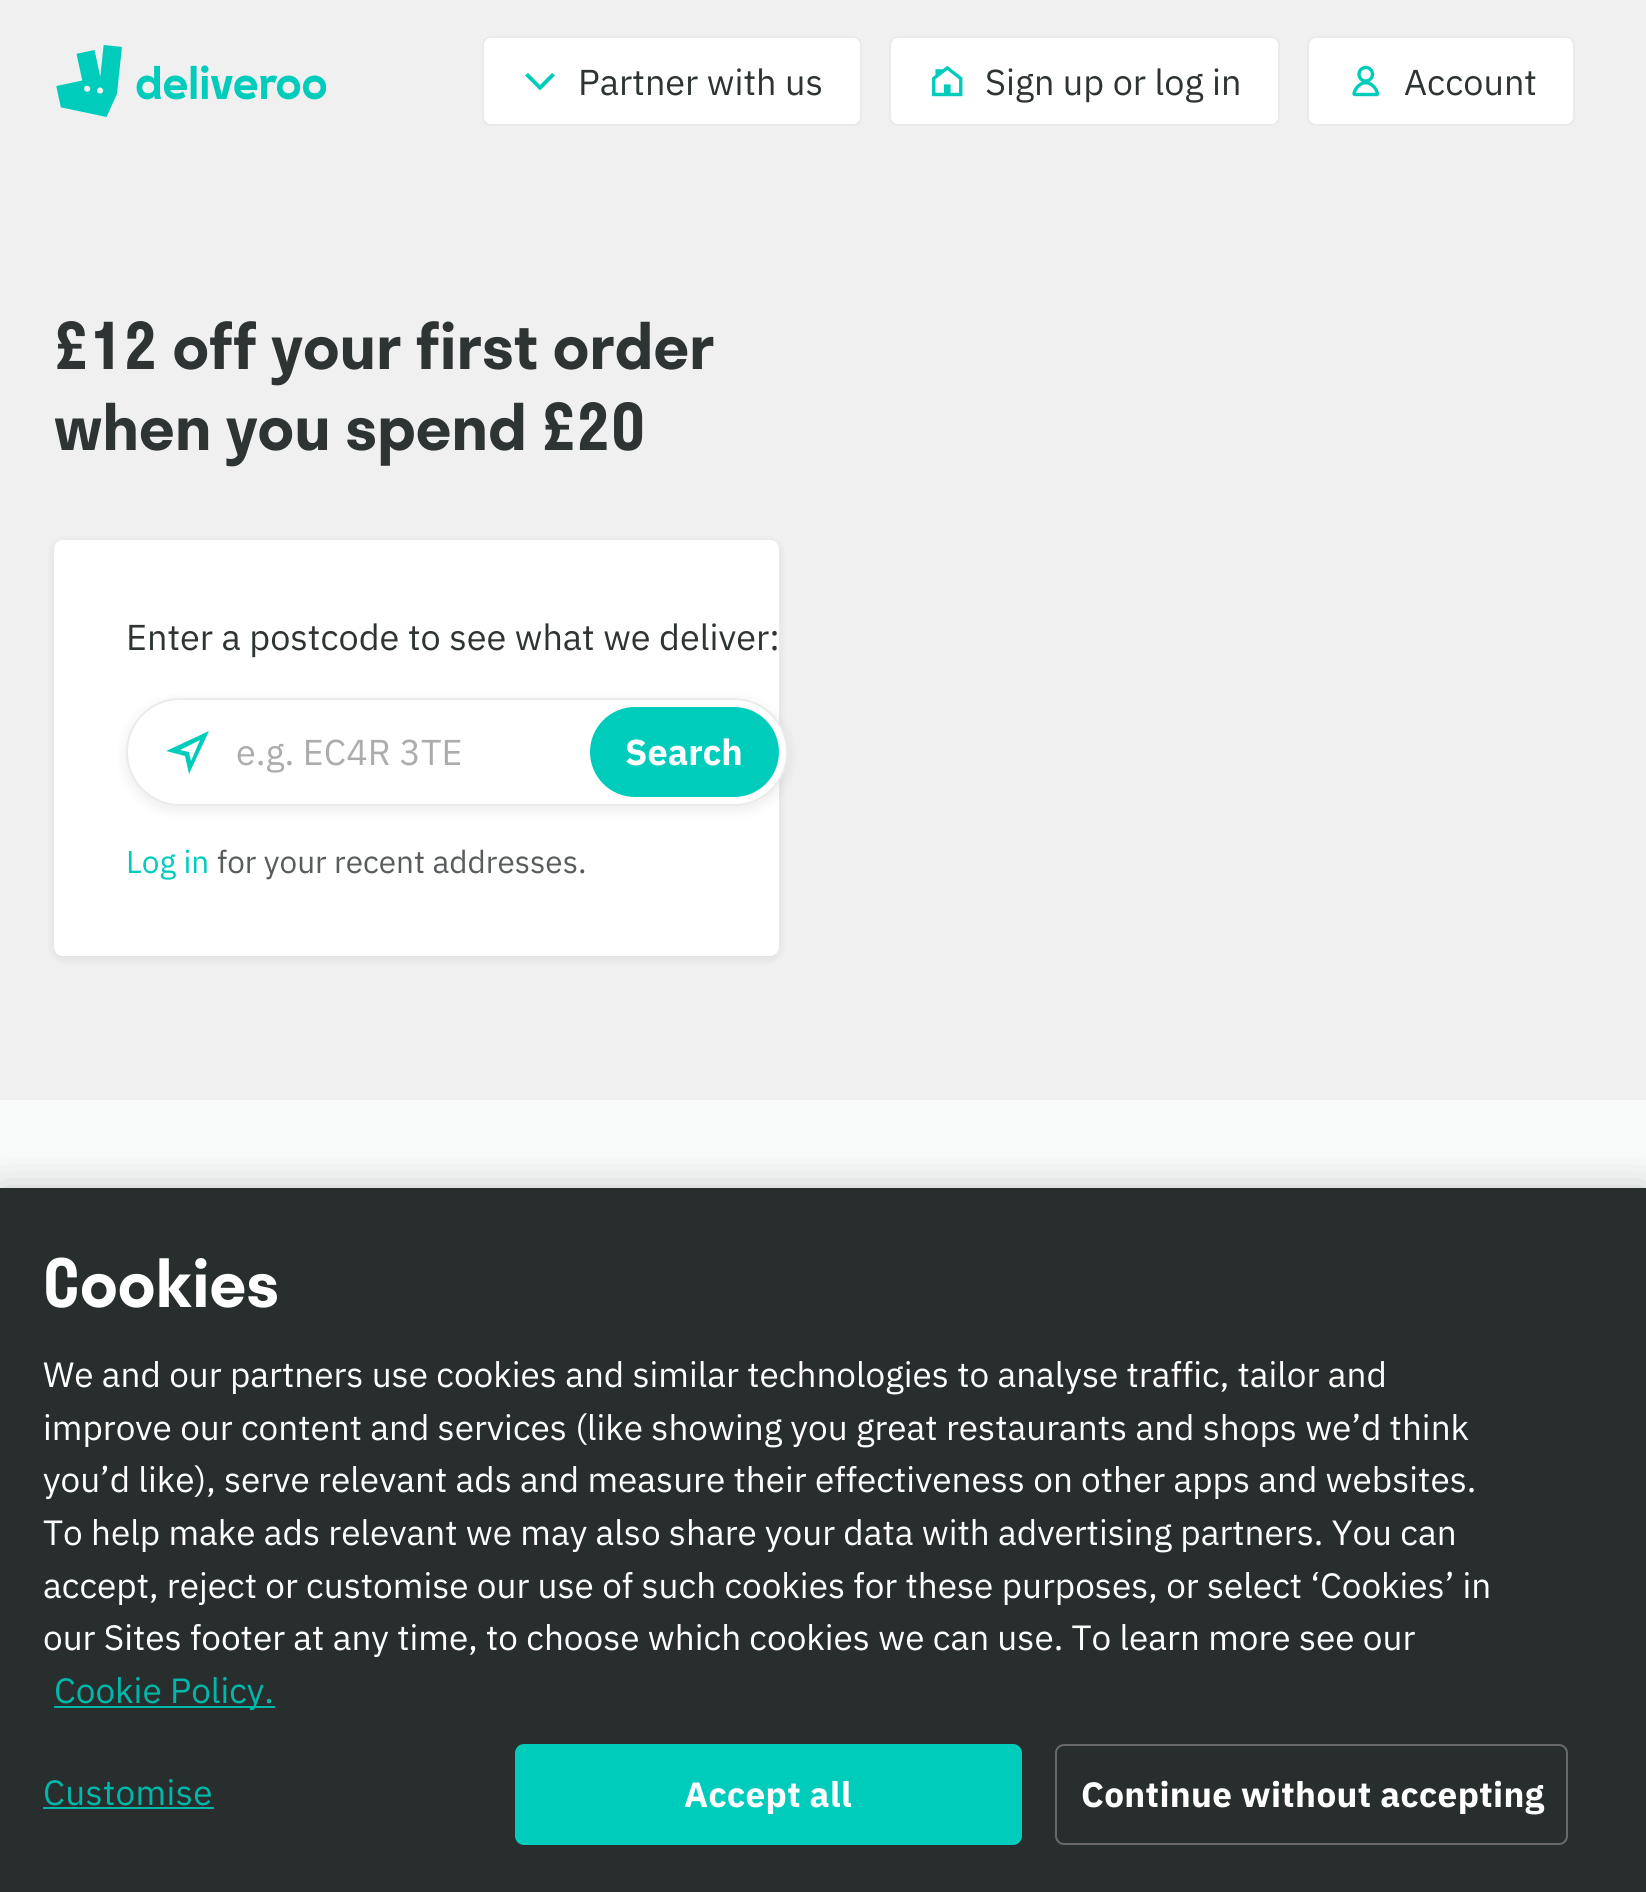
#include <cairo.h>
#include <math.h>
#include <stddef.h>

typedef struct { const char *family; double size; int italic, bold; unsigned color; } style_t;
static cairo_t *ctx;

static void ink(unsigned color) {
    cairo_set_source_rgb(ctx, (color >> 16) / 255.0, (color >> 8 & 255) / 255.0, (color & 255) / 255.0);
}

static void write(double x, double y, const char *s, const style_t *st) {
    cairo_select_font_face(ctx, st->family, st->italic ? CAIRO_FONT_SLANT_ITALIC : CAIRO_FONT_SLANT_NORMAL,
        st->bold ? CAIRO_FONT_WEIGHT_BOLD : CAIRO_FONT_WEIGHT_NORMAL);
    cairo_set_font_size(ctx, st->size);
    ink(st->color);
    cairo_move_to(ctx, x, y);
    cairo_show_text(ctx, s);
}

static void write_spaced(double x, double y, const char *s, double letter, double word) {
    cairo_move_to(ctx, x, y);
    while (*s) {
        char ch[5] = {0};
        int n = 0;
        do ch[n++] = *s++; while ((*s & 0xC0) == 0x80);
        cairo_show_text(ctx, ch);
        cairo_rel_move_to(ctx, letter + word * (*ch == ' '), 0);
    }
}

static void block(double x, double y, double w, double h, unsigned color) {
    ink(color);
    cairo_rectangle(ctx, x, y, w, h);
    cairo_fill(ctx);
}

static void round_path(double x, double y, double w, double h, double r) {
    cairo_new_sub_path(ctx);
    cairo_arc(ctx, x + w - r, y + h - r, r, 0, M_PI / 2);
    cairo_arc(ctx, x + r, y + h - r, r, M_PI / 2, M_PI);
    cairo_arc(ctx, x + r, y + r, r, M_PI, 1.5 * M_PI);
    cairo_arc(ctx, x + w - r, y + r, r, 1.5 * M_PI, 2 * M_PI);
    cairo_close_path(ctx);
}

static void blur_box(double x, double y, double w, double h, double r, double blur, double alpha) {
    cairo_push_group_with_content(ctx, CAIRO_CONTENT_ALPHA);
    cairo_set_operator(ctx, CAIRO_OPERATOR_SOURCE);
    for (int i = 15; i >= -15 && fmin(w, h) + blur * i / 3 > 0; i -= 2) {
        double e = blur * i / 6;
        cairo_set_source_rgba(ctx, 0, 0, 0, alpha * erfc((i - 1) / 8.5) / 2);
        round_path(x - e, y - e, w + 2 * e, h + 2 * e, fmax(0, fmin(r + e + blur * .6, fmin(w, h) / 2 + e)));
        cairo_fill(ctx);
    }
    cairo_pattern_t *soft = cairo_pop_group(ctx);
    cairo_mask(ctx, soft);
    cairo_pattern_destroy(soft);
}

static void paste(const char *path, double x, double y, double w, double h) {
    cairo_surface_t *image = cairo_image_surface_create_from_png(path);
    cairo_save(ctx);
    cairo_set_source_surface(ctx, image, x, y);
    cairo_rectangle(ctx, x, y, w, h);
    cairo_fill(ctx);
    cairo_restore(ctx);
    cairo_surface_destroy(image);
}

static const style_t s1 = {"IBM Plex Sans", 36, 0, 0, 0x2e3333};
static const style_t s2 = {"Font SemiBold", 63, 0, 0, 0x2e3333};
static const style_t s3 = {"IBM Plex Sans", 36, 0, 0, 0xabadad};
static const style_t s4 = {"IBM Plex Sans", 36, 0, 1, 0xffffff};
static const style_t s5 = {"IBM Plex Sans", 31.5, 0, 0, 0x00ccbc};
static const style_t s6 = {"IBM Plex Sans", 31.5, 0, 0, 0x585c5c};
static const style_t s7 = {"Font SemiBold", 65, 0, 0, 0xffffff};
static const style_t s8 = {"IBM Plex Sans", 35.1, 0, 0, 0xffffff};
static const style_t s9 = {"IBM Plex Sans", 35.1, 0, 0, 0x00b8a9};

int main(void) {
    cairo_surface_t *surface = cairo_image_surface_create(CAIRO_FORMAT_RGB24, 1646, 1892);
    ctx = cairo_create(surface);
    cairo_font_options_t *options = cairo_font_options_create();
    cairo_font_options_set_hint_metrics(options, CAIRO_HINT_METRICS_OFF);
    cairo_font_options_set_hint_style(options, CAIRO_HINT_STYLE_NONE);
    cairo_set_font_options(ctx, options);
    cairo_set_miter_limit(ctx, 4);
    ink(0xf9fafa);
    cairo_paint(ctx);
    block(0, 0, 1646, 1100, 0xf1f0f0);
    paste("pic1.png", 56, 45, 270, 72);
    ink(0xffffff);
    round_path(483, 37, 378, 88, 8);
    cairo_fill_preserve(ctx);
    ink(0xe8ebeb);
    cairo_stroke(ctx);
    ink(0x00ccbc);
    cairo_new_path(ctx);
    cairo_move_to(ctx, 528, 73);
    cairo_line_to(ctx, 525, 75.5);
    cairo_line_to(ctx, 540, 90.5);
    cairo_line_to(ctx, 555, 75.5);
    cairo_line_to(ctx, 552, 73);
    cairo_line_to(ctx, 540, 85);
    cairo_close_path(ctx);
    cairo_fill(ctx);
    write(578, 95, "Partner with us", &s1);
    ink(0xffffff);
    round_path(890, 37, 389, 88, 8);
    cairo_fill_preserve(ctx);
    ink(0xe8ebeb);
    cairo_stroke(ctx);
    paste("pic2.png", 932, 65, 31, 32);
    write(985, 95, "Sign up or log in", &s1);
    ink(0xffffff);
    round_path(1308, 37, 266, 88, 8);
    cairo_fill_preserve(ctx);
    ink(0xe8ebeb);
    cairo_stroke(ctx);
    paste("pic3.png", 1352, 65, 28, 32);
    write(1404, 95, "Account", &s1);
    write(54, 369, "£12 off your first order", &s2);
    write(54, 450, "when you spend £20", &s2);
    ink(0x000000);
    blur_box(54, 542, 725, 417, 9, 4.5, 0.08);
    ink(0xffffff);
    round_path(54, 540, 725, 416, 9);
    cairo_fill(ctx);
    write(126, 650, "Enter a postcode to see what we deliver:", &s1);
    ink(0x000000);
    blur_box(126, 702, 662, 108, 54, 7, 0.08);
    ink(0xffffff);
    round_path(126, 698, 662, 108, 54);
    cairo_fill(ctx);
    round_path(127, 699, 660, 106, 53);
    cairo_set_source_rgba(ctx, 0, 0, 0, 0.08);
    cairo_stroke(ctx);
    ink(0x00ccbc);
    cairo_new_path(ctx);
    cairo_move_to(ctx, 166, 751);
    cairo_line_to(ctx, 209, 731);
    cairo_line_to(ctx, 189, 774);
    cairo_line_to(ctx, 185, 756);
    cairo_close_path(ctx);
    cairo_move_to(ctx, 189, 752);
    cairo_line_to(ctx, 191, 761);
    cairo_line_to(ctx, 200, 740);
    cairo_line_to(ctx, 180, 750);
    cairo_close_path(ctx);
    cairo_fill(ctx);
    write(236, 765, "e.g. EC4R 3TE", &s3);
    ink(0x00ccbc);
    round_path(590, 707, 189, 90, 45);
    cairo_fill(ctx);
    write(625, 765, "Search", &s4);
    write(126, 873, "Log in", &s5);
    write(217, 873, "for your recent addresses.", &s6);
    ink(0x000000);
    blur_box(0, 1188, 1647, 704, 0, 20, 0.2);
    block(0, 1188, 1646, 704, 0x282d2d);
    write(43, 1307, "Cookies", &s7);
    write(43, 1387, "We and our partners use cookies and similar technologies to analyse traffic, tailor and", &s8);
    write(43, 1440, "improve our content and services (like showing you great restaurants and shops we’d think", &s8);
    write(43, 1492, "you’d like), serve relevant ads and measure their effectiveness on other apps and websites.", &s8);
    write(43, 1545, "To help make ads relevant we may also share your data with advertising partners. You can", &s8);
    write(43, 1598, "accept, reject or customise our use of such cookies for these purposes, or select ‘Cookies’ in", &s8);
    write(43, 1650, "our Sites footer at any time, to choose which cookies we can use. To learn more see our", &s8);
    block(54, 1706, 221, 2, 0x00b8a9);
    write(54, 1703, "Cookie Policy.", &s9);
    write_spaced(43, 1805, "Customise", 0.35, 0);
    block(43, 1807, 171, 2, 0x00b8a9);
    ink(0x00ccbc);
    round_path(516, 1745, 505, 99, 8);
    cairo_fill_preserve(ctx);
    cairo_stroke(ctx);
    cairo_select_font_face(ctx, "IBM Plex Sans", CAIRO_FONT_SLANT_NORMAL, CAIRO_FONT_WEIGHT_BOLD);
    ink(0xffffff);
    write_spaced(684, 1807, "Accept all", 0.35, 0);
    round_path(1056, 1745, 511, 99, 8);
    ink(0x696969);
    cairo_stroke(ctx);
    ink(0xffffff);
    write_spaced(1081, 1807, "Continue without accepting", 0.35, 0);
    cairo_surface_write_to_png(surface, "screenshot.png");
    cairo_font_options_destroy(options);
    cairo_destroy(ctx);
    cairo_surface_destroy(surface);
    return 0;
}
